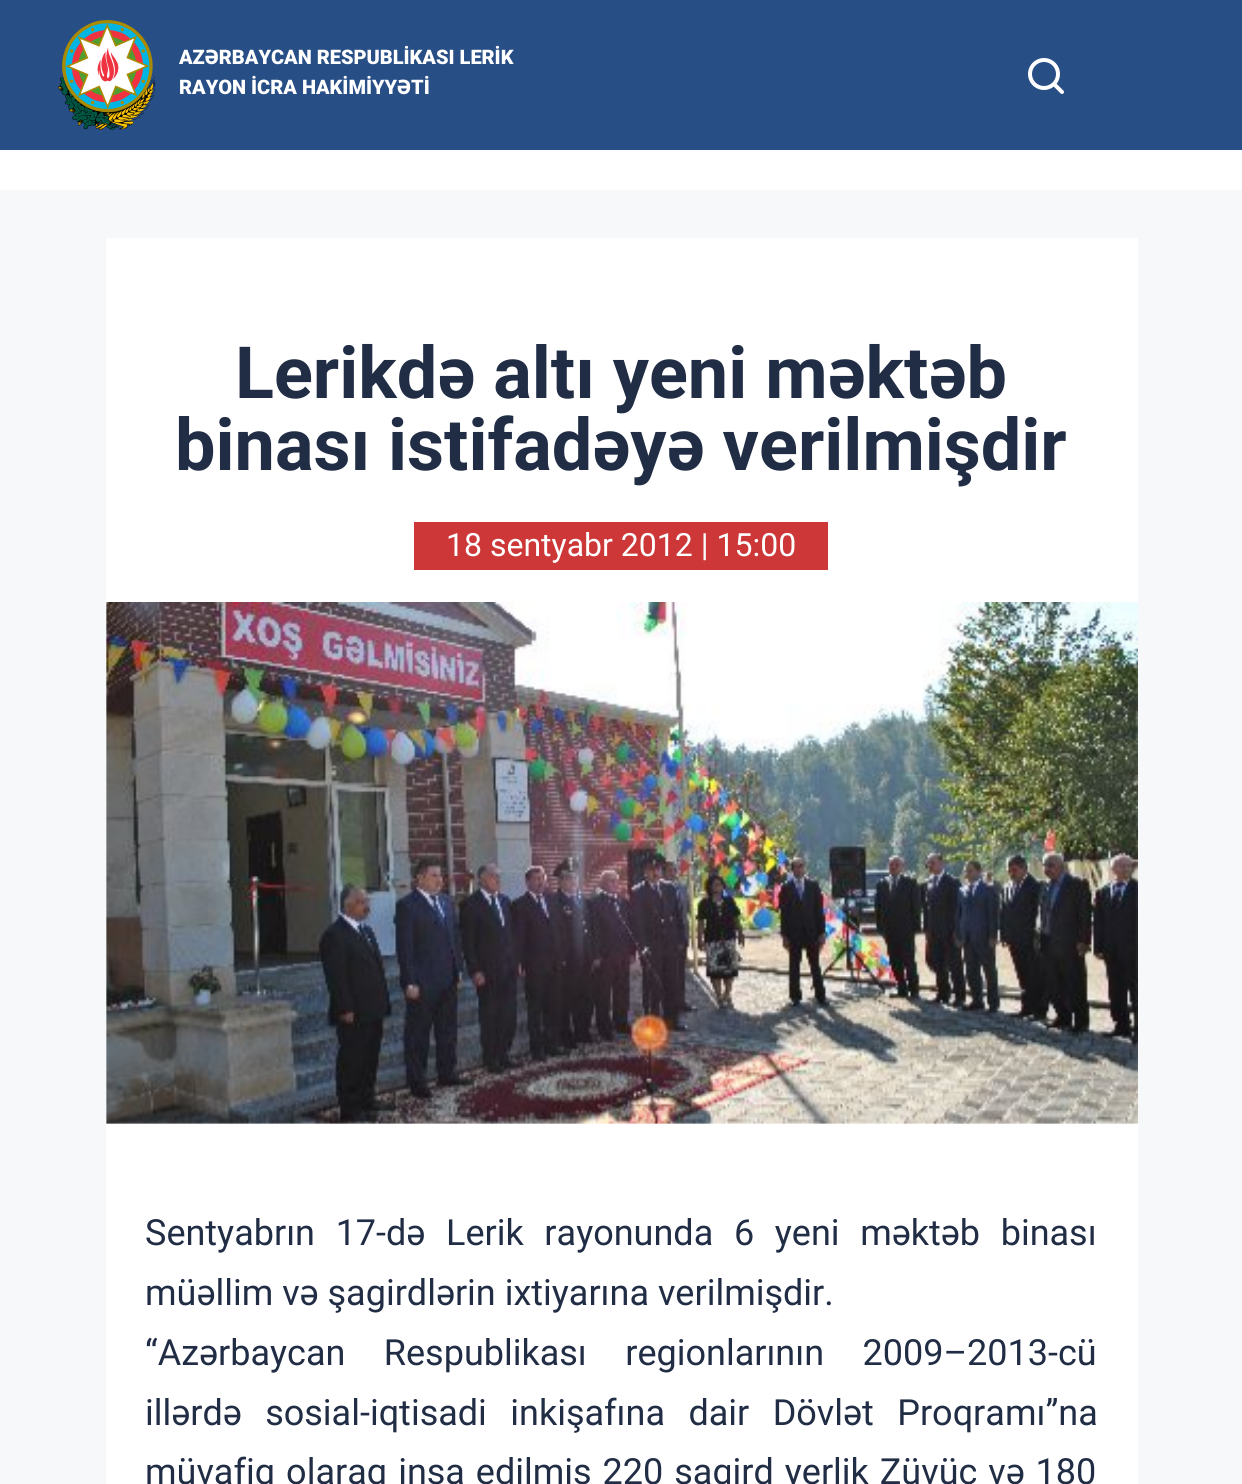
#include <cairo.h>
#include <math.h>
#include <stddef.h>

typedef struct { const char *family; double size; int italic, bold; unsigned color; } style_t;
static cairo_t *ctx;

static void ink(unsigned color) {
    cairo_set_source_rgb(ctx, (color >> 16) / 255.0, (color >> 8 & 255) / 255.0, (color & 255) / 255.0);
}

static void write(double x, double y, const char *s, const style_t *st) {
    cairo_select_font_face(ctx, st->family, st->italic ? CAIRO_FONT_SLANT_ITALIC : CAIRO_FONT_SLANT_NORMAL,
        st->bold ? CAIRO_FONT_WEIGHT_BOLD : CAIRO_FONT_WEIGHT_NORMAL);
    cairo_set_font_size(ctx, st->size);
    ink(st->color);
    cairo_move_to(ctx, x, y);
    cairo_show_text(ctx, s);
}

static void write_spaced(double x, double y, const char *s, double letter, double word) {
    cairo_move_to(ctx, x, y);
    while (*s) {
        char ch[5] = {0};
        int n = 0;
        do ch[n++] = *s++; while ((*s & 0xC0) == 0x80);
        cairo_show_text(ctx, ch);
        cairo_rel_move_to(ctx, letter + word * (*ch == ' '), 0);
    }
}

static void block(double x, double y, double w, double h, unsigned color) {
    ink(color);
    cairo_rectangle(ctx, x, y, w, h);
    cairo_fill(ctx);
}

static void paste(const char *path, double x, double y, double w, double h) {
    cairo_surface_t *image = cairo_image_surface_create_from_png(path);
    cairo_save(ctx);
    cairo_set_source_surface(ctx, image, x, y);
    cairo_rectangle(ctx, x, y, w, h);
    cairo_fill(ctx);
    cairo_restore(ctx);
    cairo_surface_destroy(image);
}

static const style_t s1 = {"Roboto Black", 20, 0, 0, 0xffffff};
static const style_t s2 = {"Roboto", 72, 0, 1, 0x212d45};
static const style_t s3 = {"Roboto", 32, 0, 0, 0xffffff};
static const style_t s4 = {"Roboto", 36, 0, 0, 0x212d45};

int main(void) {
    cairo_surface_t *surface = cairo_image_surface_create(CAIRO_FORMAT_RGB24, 1242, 1484);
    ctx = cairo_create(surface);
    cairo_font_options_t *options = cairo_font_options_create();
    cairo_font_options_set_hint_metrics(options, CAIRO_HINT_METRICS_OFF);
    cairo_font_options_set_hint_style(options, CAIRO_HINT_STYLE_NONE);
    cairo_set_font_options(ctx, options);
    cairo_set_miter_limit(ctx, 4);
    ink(0xf7f8f9);
    cairo_paint(ctx);
    block(0, 0, 1242, 150, 0x284e86);
    paste("pic1.png", 58, 20, 98, 110);
    write(179, 64, "AZƏRBAYCAN RESPUBLİKASI LERİK", &s1);
    write(179, 94, "RAYON İCRA HAKİMİYYƏTİ", &s1);
    paste("pic2.png", 1028, 58, 36, 36);
    block(0, 150, 1242, 40, 0xffffff);
    block(106, 238, 1032, 1246, 0xffffff);
    write(235, 398, "Lerikdə altı yeni məktəb", &s2);
    write(175, 470, "binası istifadəyə verilmişdir", &s2);
    block(414, 522, 414, 48, 0xcd3737);
    write(446, 556, "18 sentyabr 2012 | 15:00", &s3);
    paste("pic3.png", 106, 602, 1032, 522);
    cairo_set_font_size(ctx, 36);
    ink(0x212d45);
    write_spaced(145, 1245, "Sentyabrın 17-də Lerik rayonunda 6 yeni məktəb binası", 0, 11.75);
    write(145, 1305, "müəllim və şagirdlərin ixtiyarına verilmişdir.", &s4);
    write_spaced(145, 1365, "“Azərbaycan Respublikası regionlarının 2009–2013-cü", 0, 29.5);
    write_spaced(145, 1425, "illərdə sosial-iqtisadi inkişafına dair Dövlət Proqramı”na", 0, 14.5);
    write_spaced(145, 1484, "müvafiq olaraq inşa edilmiş 220 şagird yerlik Züvüc və 180", 0, 2);
    cairo_surface_write_to_png(surface, "screenshot.png");
    cairo_font_options_destroy(options);
    cairo_destroy(ctx);
    cairo_surface_destroy(surface);
    return 0;
}
